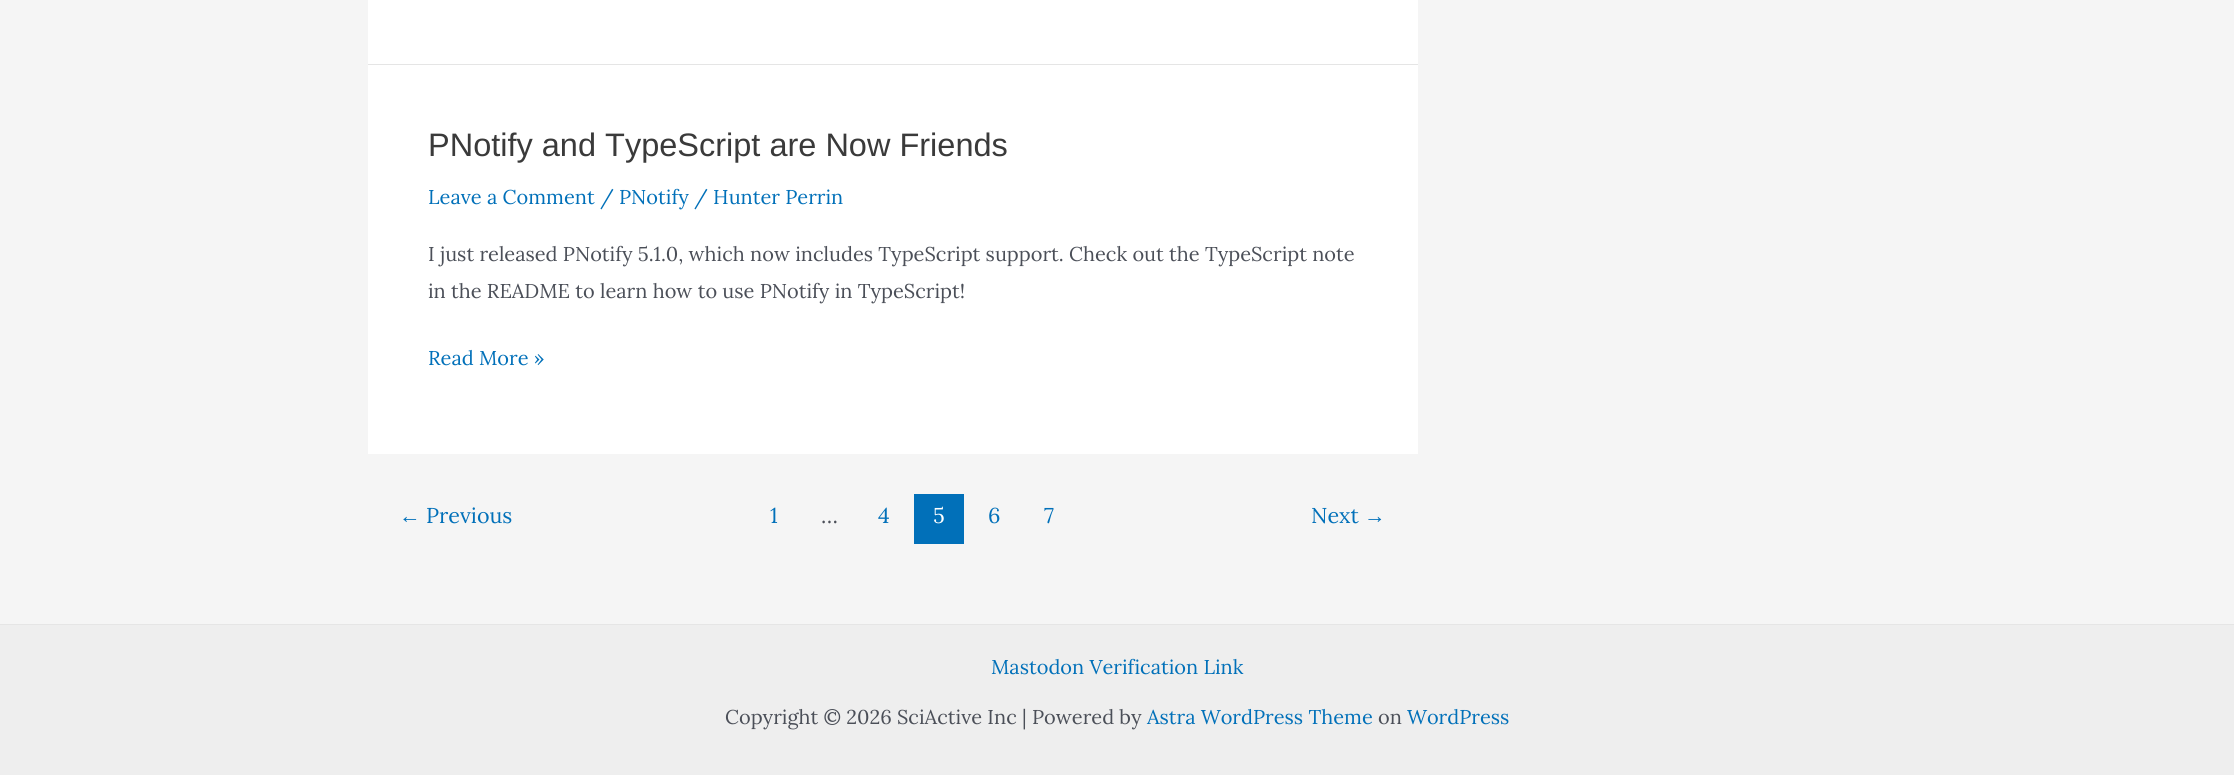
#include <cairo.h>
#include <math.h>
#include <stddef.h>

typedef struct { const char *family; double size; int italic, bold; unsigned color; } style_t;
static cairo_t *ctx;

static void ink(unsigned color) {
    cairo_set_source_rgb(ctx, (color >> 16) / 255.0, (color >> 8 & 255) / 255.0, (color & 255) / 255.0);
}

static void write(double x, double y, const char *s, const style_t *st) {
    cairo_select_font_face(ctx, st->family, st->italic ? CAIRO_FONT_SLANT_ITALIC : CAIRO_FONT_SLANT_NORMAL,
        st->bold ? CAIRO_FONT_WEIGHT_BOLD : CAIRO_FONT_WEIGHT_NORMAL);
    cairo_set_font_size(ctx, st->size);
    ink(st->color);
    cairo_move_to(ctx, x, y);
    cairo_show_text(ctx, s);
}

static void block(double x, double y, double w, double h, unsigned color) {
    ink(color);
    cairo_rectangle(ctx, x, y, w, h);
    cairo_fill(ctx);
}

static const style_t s1 = {"Liberation Sans", 32.5, 0, 0, 0x3a3a3a};
static const style_t s2 = {"Lora", 20, 0, 0, 0x0170b9};
static const style_t s3 = {"Lora", 20, 0, 0, 0x4b4f58};
static const style_t s4 = {"Liberation Serif", 21.5, 0, 0, 0x0170b9};
static const style_t s5 = {"Lora", 21.5, 0, 0, 0x0170b9};
static const style_t s6 = {"Lora", 21.5, 0, 0, 0x4b4f58};
static const style_t s7 = {"Lora", 21.5, 0, 0, 0xffffff};

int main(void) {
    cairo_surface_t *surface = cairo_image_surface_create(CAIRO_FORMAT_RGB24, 2234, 775);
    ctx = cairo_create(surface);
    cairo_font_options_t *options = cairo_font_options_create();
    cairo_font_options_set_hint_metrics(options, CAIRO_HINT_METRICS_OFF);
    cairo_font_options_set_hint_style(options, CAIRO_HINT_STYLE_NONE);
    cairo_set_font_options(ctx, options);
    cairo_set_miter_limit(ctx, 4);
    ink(0xf5f5f5);
    cairo_paint(ctx);
    block(368, 0, 1050, 64, 0xffffff);
    block(368, 64, 1050, 1, 0xe5e5e5);
    block(368, 65, 1050, 389, 0xffffff);
    write(428, 156, "PNotify and TypeScript are Now Friends", &s1);
    write(428, 204, "Leave a Comment / PNotify / Hunter Perrin", &s2);
    write(428, 261, "I just released PNotify 5.1.0, which now includes TypeScript support. Check out the TypeScript note", &s3);
    write(428, 298, "in the README to learn how to use PNotify in TypeScript!", &s3);
    write(428, 365, "Read More »", &s2);
    write(399, 523, "←", &s4);
    write(426, 523, "Previous", &s5);
    write(770, 523, "1", &s5);
    write(821, 523, "…", &s6);
    write(878, 523, "4", &s5);
    block(914, 494, 50, 50, 0x0170b9);
    write(933, 523, "5", &s7);
    write(988, 523, "6", &s5);
    write(1044, 523, "7", &s5);
    write(1311, 523, "Next", &s5);
    write(1364, 523, "→", &s4);
    block(0, 625, 2234, 150, 0xeeeeee);
    block(0, 624, 2234, 1, 0xe5e5e5);
    write(991, 674, "Mastodon Verification Link", &s2);
    write(725, 724, "Copyright © 2026 SciActive Inc | Powered by", &s3);
    write(1147, 724, "Astra WordPress Theme", &s2);
    write(1378, 724, "on", &s3);
    write(1407, 724, "WordPress", &s2);
    cairo_surface_write_to_png(surface, "screenshot.png");
    cairo_font_options_destroy(options);
    cairo_destroy(ctx);
    cairo_surface_destroy(surface);
    return 0;
}
